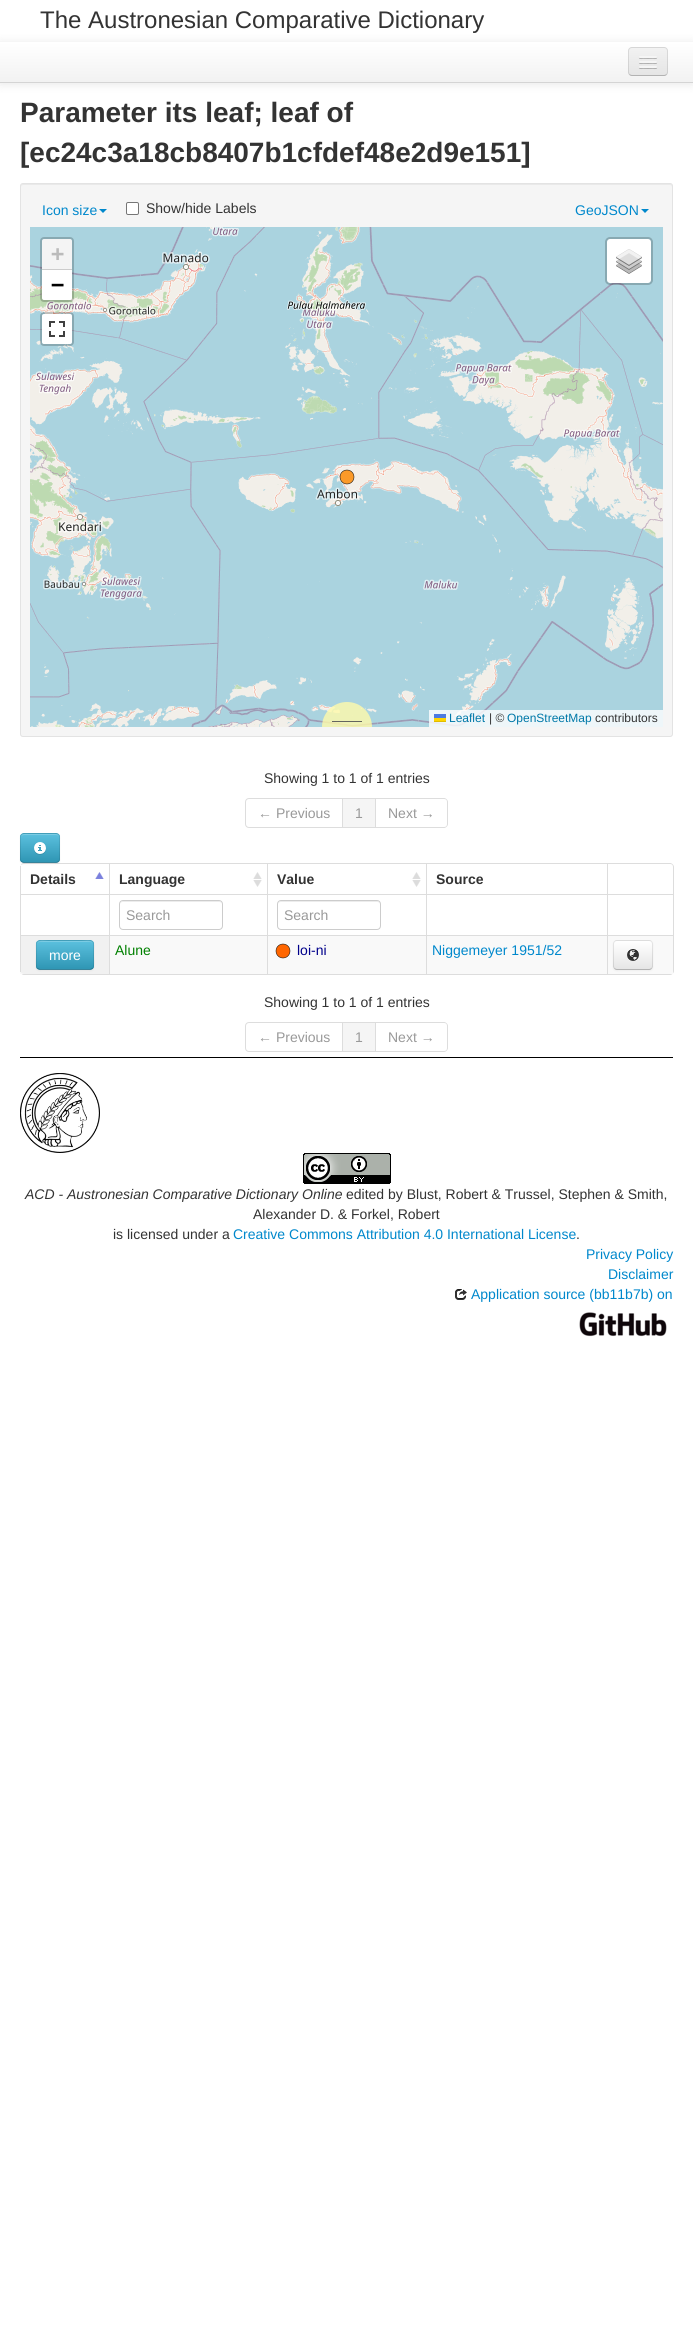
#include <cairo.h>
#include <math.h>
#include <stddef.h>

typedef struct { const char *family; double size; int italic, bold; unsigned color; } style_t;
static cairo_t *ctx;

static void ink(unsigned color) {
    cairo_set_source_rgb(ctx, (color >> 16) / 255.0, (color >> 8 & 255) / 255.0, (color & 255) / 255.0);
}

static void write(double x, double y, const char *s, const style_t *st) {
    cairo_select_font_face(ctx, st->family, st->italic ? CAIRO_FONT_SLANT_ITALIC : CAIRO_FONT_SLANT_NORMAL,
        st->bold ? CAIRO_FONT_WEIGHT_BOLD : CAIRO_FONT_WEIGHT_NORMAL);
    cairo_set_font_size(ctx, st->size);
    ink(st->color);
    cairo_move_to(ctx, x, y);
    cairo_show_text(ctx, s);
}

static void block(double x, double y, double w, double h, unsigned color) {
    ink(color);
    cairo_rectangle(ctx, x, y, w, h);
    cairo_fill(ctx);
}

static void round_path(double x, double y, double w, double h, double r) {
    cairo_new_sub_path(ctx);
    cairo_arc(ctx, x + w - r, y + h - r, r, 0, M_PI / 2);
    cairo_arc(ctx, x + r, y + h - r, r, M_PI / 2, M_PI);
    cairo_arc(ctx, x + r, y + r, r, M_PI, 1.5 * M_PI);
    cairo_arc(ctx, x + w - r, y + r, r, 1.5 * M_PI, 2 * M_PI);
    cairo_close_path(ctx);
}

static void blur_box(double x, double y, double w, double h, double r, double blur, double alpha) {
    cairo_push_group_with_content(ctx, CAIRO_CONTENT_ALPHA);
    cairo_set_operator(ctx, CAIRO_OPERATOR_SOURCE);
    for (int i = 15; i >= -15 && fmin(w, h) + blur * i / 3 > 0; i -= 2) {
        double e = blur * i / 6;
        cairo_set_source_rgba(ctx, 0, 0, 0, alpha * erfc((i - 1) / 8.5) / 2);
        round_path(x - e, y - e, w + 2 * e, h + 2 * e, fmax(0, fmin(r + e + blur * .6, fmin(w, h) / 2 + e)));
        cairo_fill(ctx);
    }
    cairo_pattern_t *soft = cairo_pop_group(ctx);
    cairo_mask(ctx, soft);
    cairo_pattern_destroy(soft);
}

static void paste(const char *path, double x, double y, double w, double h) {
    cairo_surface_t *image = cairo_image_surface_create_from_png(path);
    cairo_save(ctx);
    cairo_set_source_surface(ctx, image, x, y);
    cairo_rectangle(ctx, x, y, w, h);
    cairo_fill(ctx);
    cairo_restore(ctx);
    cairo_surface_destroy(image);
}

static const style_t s1 = {"Liberation Sans", 24, 0, 0, 0x333333};
static const style_t s2 = {"Liberation Sans", 28, 0, 1, 0x333333};
static const style_t s3 = {"Liberation Sans", 14, 0, 0, 0x0088cc};
static const style_t s4 = {"Liberation Sans", 14, 0, 0, 0x333333};
static const style_t s5 = {"DejaVu Sans Mono", 22, 0, 1, 0xbbbbbb};
static const style_t s6 = {"DejaVu Sans Mono", 22, 0, 1, 0x000000};
static const style_t s7 = {"Liberation Sans", 12, 0, 0, 0x0078a8};
static const style_t s8 = {"Liberation Sans", 12, 0, 0, 0x333333};
static const style_t s9 = {"Liberation Sans", 14, 0, 0, 0x999999};
static const style_t s10 = {"Liberation Sans", 14, 0, 1, 0x333333};
static const style_t s11 = {"Liberation Sans", 14, 0, 0, 0xffffff};
static const style_t s12 = {"Liberation Sans", 14, 0, 0, 0x008000};
static const style_t s13 = {"Liberation Sans", 14, 0, 0, 0x00008b};
static const style_t s14 = {"Liberation Sans", 14, 1, 0, 0x333333};

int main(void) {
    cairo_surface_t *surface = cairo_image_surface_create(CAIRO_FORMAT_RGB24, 693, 2343);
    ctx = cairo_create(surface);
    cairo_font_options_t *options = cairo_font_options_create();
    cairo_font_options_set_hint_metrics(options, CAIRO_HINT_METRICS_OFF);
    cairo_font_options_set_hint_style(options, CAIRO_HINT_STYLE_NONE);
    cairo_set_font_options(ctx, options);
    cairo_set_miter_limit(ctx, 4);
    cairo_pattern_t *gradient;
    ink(0xffffff);
    cairo_paint(ctx);
    ink(0x000000);
    blur_box(0, 43, 693, 41, 0, 5, 0.1);
    write(40, 28, "The Austronesian Comparative Dictionary", &s1);
    gradient = cairo_pattern_create_linear(347, 42, 347, 82);
    cairo_pattern_add_color_stop_rgba(gradient, 0, 1, 1, 1, 1);
    cairo_pattern_add_color_stop_rgba(gradient, 1, 0.949, 0.949, 0.949, 1);
    cairo_set_source(ctx, gradient);
    cairo_pattern_destroy(gradient);
    cairo_rectangle(ctx, 0, 42, 693, 40);
    cairo_fill(ctx);
    block(0, 82, 693, 1, 0xd4d4d4);
    ink(0xededed);
    round_path(628, 47, 40, 29, 4);
    cairo_fill(ctx);
    cairo_save(ctx);
    round_path(628, 47, 40, 29, 4);
    cairo_clip(ctx);
    gradient = cairo_pattern_create_linear(648, 48, 648, 75);
    cairo_pattern_add_color_stop_rgba(gradient, 0, 0.949, 0.949, 0.949, 1);
    cairo_pattern_add_color_stop_rgba(gradient, 1, 0.898, 0.898, 0.898, 1);
    cairo_set_source(ctx, gradient);
    cairo_pattern_destroy(gradient);
    cairo_rectangle(ctx, 628, 48, 40, 27);
    cairo_fill(ctx);
    cairo_restore(ctx);
    cairo_new_path(ctx);
    cairo_move_to(ctx, 666.5, 74.5);
    cairo_curve_to(ctx, 666, 75, 665, 75.5, 664, 75.5);
    cairo_line_to(ctx, 632, 75.5);
    cairo_curve_to(ctx, 631, 75.5, 630, 75, 629.5, 74.5);
    ink(0xb2b2b2);
    cairo_set_line_width(ctx, 1);
    cairo_stroke(ctx);
    cairo_new_path(ctx);
    cairo_move_to(ctx, 629.5, 74.5);
    cairo_curve_to(ctx, 629, 74, 628.5, 73, 628.5, 72);
    cairo_line_to(ctx, 628.5, 51);
    cairo_curve_to(ctx, 628.5, 50, 629, 49, 629.5, 48.5);
    cairo_curve_to(ctx, 630, 48, 631, 47.5, 632, 47.5);
    cairo_line_to(ctx, 664, 47.5);
    cairo_curve_to(ctx, 665, 47.5, 666, 48, 666.5, 48.5);
    cairo_curve_to(ctx, 667, 49, 667.5, 50, 667.5, 51);
    cairo_line_to(ctx, 667.5, 72);
    cairo_curve_to(ctx, 667.5, 73, 667, 74, 666.5, 74.5);
    cairo_set_source_rgba(ctx, 0, 0, 0, 0.1);
    cairo_stroke(ctx);
    ink(0xb2b2b2);
    cairo_new_path(ctx);
    cairo_move_to(ctx, 639, 57.5);
    cairo_curve_to(ctx, 638, 59.5, 642.5, 59, 642.5, 59);
    cairo_line_to(ctx, 653.5, 59);
    cairo_curve_to(ctx, 653.5, 59, 658, 59.5, 657, 57.5);
    cairo_curve_to(ctx, 656, 58.5, 649.5, 58, 648, 58);
    cairo_curve_to(ctx, 646.5, 58, 640, 58.5, 639, 57.5);
    cairo_close_path(ctx);
    cairo_fill(ctx);
    ink(0xf5f5f5);
    round_path(639, 56, 18, 2, 1);
    cairo_fill(ctx);
    ink(0xb0b0b0);
    cairo_new_path(ctx);
    cairo_move_to(ctx, 639, 62.5);
    cairo_curve_to(ctx, 638, 64.5, 642.5, 64, 642.5, 64);
    cairo_line_to(ctx, 653.5, 64);
    cairo_curve_to(ctx, 653.5, 64, 658, 64.5, 657, 62.5);
    cairo_curve_to(ctx, 656, 63.5, 649.5, 63, 648, 63);
    cairo_curve_to(ctx, 646.5, 63, 640, 63.5, 639, 62.5);
    cairo_close_path(ctx);
    cairo_fill(ctx);
    ink(0xf5f5f5);
    round_path(639, 61, 18, 2, 1);
    cairo_fill(ctx);
    ink(0xaeaeae);
    cairo_new_path(ctx);
    cairo_move_to(ctx, 639, 67.5);
    cairo_curve_to(ctx, 638, 69.5, 642.5, 69, 642.5, 69);
    cairo_line_to(ctx, 653.5, 69);
    cairo_curve_to(ctx, 653.5, 69, 658, 69.5, 657, 67.5);
    cairo_curve_to(ctx, 656, 68.5, 649.5, 68, 648, 68);
    cairo_curve_to(ctx, 646.5, 68, 640, 68.5, 639, 67.5);
    cairo_close_path(ctx);
    cairo_fill(ctx);
    ink(0xf5f5f5);
    round_path(639, 66, 18, 2, 1);
    cairo_fill(ctx);
    write(20, 122, "Parameter its leaf; leaf of", &s2);
    write(20, 162, "[ec24c3a18cb8407b1cfdef48e2d9e151]", &s2);
    ink(0xf5f5f5);
    round_path(20, 183, 653, 554, 3);
    cairo_fill(ctx);
    ink(0xe9e9e9);
    cairo_new_path(ctx);
    cairo_move_to(ctx, 23, 185);
    cairo_line_to(ctx, 670, 185);
    cairo_curve_to(ctx, 671, 185, 672, 186, 672, 187);
    cairo_curve_to(ctx, 672, 186, 672, 184, 670, 184);
    cairo_line_to(ctx, 23, 184);
    cairo_curve_to(ctx, 21, 184, 21, 186, 21, 187);
    cairo_curve_to(ctx, 21, 186, 22, 185, 23, 185);
    cairo_close_path(ctx);
    cairo_fill(ctx);
    round_path(20.5, 183.5, 652, 553, 2.5);
    ink(0xe3e3e3);
    cairo_stroke(ctx);
    write(42, 215, "Icon size", &s3);
    cairo_new_path(ctx);
    cairo_move_to(ctx, 99, 209);
    cairo_line_to(ctx, 107, 209);
    cairo_line_to(ctx, 103, 213);
    cairo_close_path(ctx);
    cairo_fill(ctx);
    ink(0xffffff);
    round_path(126.5, 202.5, 12, 12, 1.5);
    cairo_fill_preserve(ctx);
    ink(0x767676);
    cairo_stroke(ctx);
    write(146, 213, "Show/hide Labels", &s4);
    write(575, 215, "GeoJSON", &s3);
    cairo_new_path(ctx);
    cairo_move_to(ctx, 641, 209);
    cairo_line_to(ctx, 649, 209);
    cairo_line_to(ctx, 645, 213);
    cairo_close_path(ctx);
    cairo_fill(ctx);
    paste("pic1.png", 30, 227, 106, 108);
    paste("pic2.png", 136, 227, 256, 108);
    paste("pic3.png", 392, 227, 256, 108);
    paste("pic4.png", 648, 227, 15, 108);
    paste("pic5.png", 30, 335, 106, 256);
    paste("pic6.png", 136, 335, 256, 256);
    paste("pic7.png", 392, 335, 256, 256);
    paste("pic8.png", 648, 335, 15, 256);
    paste("pic9.png", 30, 591, 106, 136);
    paste("pic10.png", 136, 591, 256, 136);
    paste("pic11.png", 392, 591, 256, 136);
    paste("pic12.png", 648, 591, 15, 136);
    ink(0xfb9a29);
    cairo_arc(ctx, 347, 477, 7, 0, 2 * M_PI);
    cairo_fill_preserve(ctx);
    ink(0x000000);
    cairo_set_line_width(ctx, 0.5);
    cairo_stroke(ctx);
    round_path(41, 238, 32, 63, 3);
    cairo_set_source_rgba(ctx, 0, 0, 0, 0.2);
    cairo_set_line_width(ctx, 2);
    cairo_stroke(ctx);
    ink(0xf4f4f4);
    cairo_new_path(ctx);
    cairo_move_to(ctx, 44, 239);
    cairo_line_to(ctx, 70, 239);
    cairo_curve_to(ctx, 71, 239, 72, 240, 72, 241);
    cairo_line_to(ctx, 72, 270);
    cairo_line_to(ctx, 42, 270);
    cairo_line_to(ctx, 42, 241);
    cairo_curve_to(ctx, 42, 240, 43, 239, 44, 239);
    cairo_close_path(ctx);
    cairo_fill(ctx);
    block(42, 269, 30, 1, 0xcccccc);
    write(51, 261, "+", &s5);
    ink(0xffffff);
    cairo_new_path(ctx);
    cairo_move_to(ctx, 42, 270);
    cairo_line_to(ctx, 72, 270);
    cairo_line_to(ctx, 72, 298);
    cairo_curve_to(ctx, 72, 299, 71, 300, 70, 300);
    cairo_line_to(ctx, 44, 300);
    cairo_curve_to(ctx, 43, 300, 42, 299, 42, 298);
    cairo_close_path(ctx);
    cairo_fill(ctx);
    write(51, 292, "−", &s6);
    round_path(41, 313, 32, 32, 3);
    cairo_set_source_rgba(ctx, 0, 0, 0, 0.2);
    cairo_stroke(ctx);
    ink(0xffffff);
    round_path(42, 314, 30, 30, 2);
    cairo_fill(ctx);
    paste("pic13.png", 49, 321, 16, 16);
    round_path(607, 239, 44, 44, 3);
    cairo_fill(ctx);
    round_path(606, 238, 46, 46, 4);
    cairo_set_source_rgba(ctx, 0, 0, 0, 0.2);
    cairo_stroke(ctx);
    paste("pic14.png", 616, 249, 26, 25);
    cairo_set_source_rgba(ctx, 1, 0.98, 0.667, 0.8);
    cairo_new_path(ctx);
    cairo_move_to(ctx, 347, 702);
    cairo_curve_to(ctx, 361, 702, 372, 713, 372, 727);
    cairo_line_to(ctx, 322, 727);
    cairo_curve_to(ctx, 322, 713, 333, 702, 347, 702);
    cairo_close_path(ctx);
    cairo_fill(ctx);
    block(332, 721, 30, 1, 0x64655f);
    cairo_set_source_rgba(ctx, 1, 1, 1, 0.8);
    cairo_rectangle(ctx, 429, 710, 234, 17);
    cairo_fill(ctx);
    write(449, 722, "Leaflet", &s7);
    block(434, 714, 12, 4, 0x4c7be1);
    block(434, 718, 12, 3, 0xffd500);
    block(434, 721, 12, 1, 0xe0bc00);
    write(489, 722, "| ©", &s8);
    write(507, 722, "OpenStreetMap", &s7);
    write(595, 722, "contributors", &s8);
    write(264, 783, "Showing 1 to 1 of 1 entries", &s4);
    cairo_new_path(ctx);
    cairo_move_to(ctx, 249, 798.5);
    cairo_line_to(ctx, 342.5, 798.5);
    cairo_line_to(ctx, 342.5, 827.5);
    cairo_line_to(ctx, 249, 827.5);
    cairo_curve_to(ctx, 247, 827.5, 245.5, 826, 245.5, 824);
    cairo_line_to(ctx, 245.5, 802);
    cairo_curve_to(ctx, 245.5, 800, 247, 798.5, 249, 798.5);
    cairo_close_path(ctx);
    ink(0xdddddd);
    cairo_set_line_width(ctx, 1);
    cairo_stroke(ctx);
    write(258, 818, "← Previous", &s9);
    block(343, 799, 32, 28, 0xf5f5f5);
    block(343, 798, 33, 1, 0xdddddd);
    block(375, 798, 1, 30, 0xdddddd);
    block(343, 827, 33, 1, 0xdddddd);
    write(355, 818, "1", &s9);
    ink(0xdddddd);
    cairo_set_fill_rule(ctx, CAIRO_FILL_RULE_EVEN_ODD);
    cairo_new_path(ctx);
    cairo_move_to(ctx, 376, 798);
    cairo_line_to(ctx, 444, 798);
    cairo_curve_to(ctx, 446, 798, 448, 800, 448, 802);
    cairo_line_to(ctx, 448, 824);
    cairo_curve_to(ctx, 448, 826, 446, 828, 444, 828);
    cairo_line_to(ctx, 376, 828);
    cairo_close_path(ctx);
    cairo_move_to(ctx, 376, 799);
    cairo_line_to(ctx, 444, 799);
    cairo_curve_to(ctx, 446, 799, 447, 800, 447, 802);
    cairo_line_to(ctx, 447, 824);
    cairo_curve_to(ctx, 447, 826, 446, 827, 444, 827);
    cairo_line_to(ctx, 376, 827);
    cairo_close_path(ctx);
    cairo_fill(ctx);
    write(388, 818, "Next →", &s9);
    ink(0xdddddd);
    cairo_new_path(ctx);
    cairo_move_to(ctx, 24, 863);
    cairo_line_to(ctx, 670, 863);
    cairo_curve_to(ctx, 672, 863, 674, 865, 674, 867);
    cairo_line_to(ctx, 674, 971);
    cairo_curve_to(ctx, 674, 973, 672, 975, 670, 975);
    cairo_line_to(ctx, 24, 975);
    cairo_curve_to(ctx, 22, 975, 20, 973, 20, 971);
    cairo_line_to(ctx, 20, 867);
    cairo_curve_to(ctx, 20, 865, 22, 863, 24, 863);
    cairo_close_path(ctx);
    cairo_move_to(ctx, 24, 864);
    cairo_line_to(ctx, 670, 864);
    cairo_curve_to(ctx, 672, 864, 673, 865, 673, 867);
    cairo_line_to(ctx, 673, 971);
    cairo_curve_to(ctx, 673, 973, 672, 974, 670, 974);
    cairo_line_to(ctx, 24, 974);
    cairo_curve_to(ctx, 22, 974, 20, 973, 20, 971);
    cairo_line_to(ctx, 20, 867);
    cairo_curve_to(ctx, 20, 865, 22, 864, 24, 864);
    cairo_close_path(ctx);
    cairo_fill(ctx);
    block(20, 866, 1, 28, 0xdddddd);
    ink(0x000000);
    blur_box(20, 834, 40, 30, 4, 1, 0.05);
    ink(0x49afcd);
    round_path(20, 833, 40, 30, 4);
    cairo_fill(ctx);
    cairo_save(ctx);
    cairo_set_fill_rule(ctx, CAIRO_FILL_RULE_WINDING);
    round_path(20, 833, 40, 30, 4);
    cairo_clip(ctx);
    gradient = cairo_pattern_create_linear(40, 834, 40, 862);
    cairo_pattern_add_color_stop_rgba(gradient, 0, 0.357, 0.753, 0.871, 1);
    cairo_pattern_add_color_stop_rgba(gradient, 1, 0.184, 0.588, 0.706, 1);
    cairo_set_source(ctx, gradient);
    cairo_pattern_destroy(gradient);
    cairo_rectangle(ctx, 20, 834, 40, 28);
    cairo_fill(ctx);
    cairo_restore(ctx);
    ink(0x7bcce4);
    cairo_set_fill_rule(ctx, CAIRO_FILL_RULE_WINDING);
    cairo_new_path(ctx);
    cairo_move_to(ctx, 24, 835);
    cairo_line_to(ctx, 56, 835);
    cairo_curve_to(ctx, 58, 835, 59, 836, 59, 838);
    cairo_curve_to(ctx, 59, 833, 55, 834, 50.5, 834);
    cairo_line_to(ctx, 29.5, 834);
    cairo_curve_to(ctx, 25, 834, 21, 833, 21, 838);
    cairo_curve_to(ctx, 21, 836, 22, 835, 24, 835);
    cairo_close_path(ctx);
    cairo_fill(ctx);
    cairo_new_path(ctx);
    cairo_move_to(ctx, 58.5, 861.5);
    cairo_curve_to(ctx, 58, 862, 57, 862.5, 56, 862.5);
    cairo_line_to(ctx, 24, 862.5);
    cairo_curve_to(ctx, 23, 862.5, 22, 862, 21.5, 861.5);
    cairo_set_source_rgba(ctx, 0, 0, 0, 0.25);
    cairo_stroke(ctx);
    cairo_new_path(ctx);
    cairo_move_to(ctx, 21.5, 861.5);
    cairo_curve_to(ctx, 21, 861, 20.5, 860, 20.5, 859);
    cairo_line_to(ctx, 20.5, 837);
    cairo_curve_to(ctx, 20.5, 836, 21, 835, 21.5, 834.5);
    cairo_curve_to(ctx, 22, 834, 23, 833.5, 24, 833.5);
    cairo_line_to(ctx, 56, 833.5);
    cairo_curve_to(ctx, 57, 833.5, 58, 834, 58.5, 834.5);
    cairo_curve_to(ctx, 59, 835, 59.5, 836, 59.5, 837);
    cairo_line_to(ctx, 59.5, 859);
    cairo_curve_to(ctx, 59.5, 860, 59, 861, 58.5, 861.5);
    cairo_set_source_rgba(ctx, 0, 0, 0, 0.1);
    cairo_stroke(ctx);
    paste("pic15.png", 34, 842, 12, 13);
    paste("pic16.png", 95, 872, 9, 7);
    write(30, 884, "Details", &s10);
    paste("pic17.png", 253, 872, 9, 15);
    block(109, 864, 1, 30, 0xdddddd);
    write(119, 884, "Language", &s10);
    paste("pic17.png", 412, 872, 9, 15);
    block(267, 864, 1, 30, 0xdddddd);
    write(277, 884, "Value", &s10);
    block(426, 864, 1, 30, 0xdddddd);
    write(436, 884, "Source", &s10);
    block(607, 864, 1, 30, 0xdddddd);
    block(20, 894, 653, 1, 0xdddddd);
    block(20, 894, 1, 41, 0xdddddd);
    block(109, 894, 1, 41, 0xdddddd);
    ink(0xececec);
    cairo_new_path(ctx);
    cairo_move_to(ctx, 123, 902);
    cairo_line_to(ctx, 219, 902);
    cairo_curve_to(ctx, 221, 902, 222, 903, 222, 905);
    cairo_curve_to(ctx, 222, 897, 206, 901, 203, 901);
    cairo_line_to(ctx, 139, 901);
    cairo_curve_to(ctx, 136, 901, 120, 897, 120, 905);
    cairo_curve_to(ctx, 120, 903, 121, 902, 123, 902);
    cairo_close_path(ctx);
    cairo_fill(ctx);
    round_path(119.5, 900.5, 103, 29, 3.5);
    ink(0xcccccc);
    cairo_stroke(ctx);
    write(126, 920, "Search", &s9);
    block(267, 894, 1, 41, 0xdddddd);
    ink(0xececec);
    cairo_new_path(ctx);
    cairo_move_to(ctx, 281, 902);
    cairo_line_to(ctx, 377, 902);
    cairo_curve_to(ctx, 379, 902, 380, 903, 380, 905);
    cairo_curve_to(ctx, 380, 897, 364, 901, 361, 901);
    cairo_line_to(ctx, 297, 901);
    cairo_curve_to(ctx, 294, 901, 278, 897, 278, 905);
    cairo_curve_to(ctx, 278, 903, 279, 902, 281, 902);
    cairo_close_path(ctx);
    cairo_fill(ctx);
    round_path(277.5, 900.5, 103, 29, 3.5);
    ink(0xcccccc);
    cairo_stroke(ctx);
    write(284, 920, "Search", &s9);
    block(426, 894, 1, 41, 0xdddddd);
    block(607, 894, 1, 41, 0xdddddd);
    block(20, 936, 653, 38, 0xf9f9f9);
    ink(0xf1f1f1);
    cairo_new_path(ctx);
    cairo_move_to(ctx, 20, 935);
    cairo_line_to(ctx, 109, 935);
    cairo_line_to(ctx, 109, 974);
    cairo_line_to(ctx, 24, 974);
    cairo_curve_to(ctx, 22, 974, 20, 972, 20, 970);
    cairo_close_path(ctx);
    cairo_fill(ctx);
    block(20, 935, 653, 1, 0xdddddd);
    block(20, 935, 1, 37, 0xdddddd);
    ink(0x000000);
    blur_box(36, 941, 58, 30, 4, 1, 0.05);
    ink(0x49afcd);
    round_path(36, 940, 58, 30, 4);
    cairo_fill(ctx);
    cairo_save(ctx);
    round_path(36, 940, 58, 30, 4);
    cairo_clip(ctx);
    gradient = cairo_pattern_create_linear(65, 941, 65, 969);
    cairo_pattern_add_color_stop_rgba(gradient, 0, 0.357, 0.753, 0.871, 1);
    cairo_pattern_add_color_stop_rgba(gradient, 1, 0.184, 0.588, 0.706, 1);
    cairo_set_source(ctx, gradient);
    cairo_pattern_destroy(gradient);
    cairo_rectangle(ctx, 36, 941, 58, 28);
    cairo_fill(ctx);
    cairo_restore(ctx);
    ink(0x7bcce4);
    cairo_new_path(ctx);
    cairo_move_to(ctx, 40, 942);
    cairo_line_to(ctx, 90, 942);
    cairo_curve_to(ctx, 92, 942, 93, 943, 93, 945);
    cairo_curve_to(ctx, 93, 939, 86, 941, 82, 941);
    cairo_line_to(ctx, 48, 941);
    cairo_curve_to(ctx, 44, 941, 37, 939, 37, 945);
    cairo_curve_to(ctx, 37, 943, 38, 942, 40, 942);
    cairo_close_path(ctx);
    cairo_fill(ctx);
    cairo_new_path(ctx);
    cairo_move_to(ctx, 92.5, 968.5);
    cairo_line_to(ctx, 90.5, 969.5);
    cairo_line_to(ctx, 39.5, 969.5);
    cairo_line_to(ctx, 37.5, 968.5);
    cairo_set_source_rgba(ctx, 0, 0, 0, 0.25);
    cairo_stroke(ctx);
    cairo_new_path(ctx);
    cairo_move_to(ctx, 37.5, 968.5);
    cairo_curve_to(ctx, 35.5, 966.5, 36.5, 958, 36.5, 955);
    cairo_curve_to(ctx, 36.5, 940, 34, 940.5, 48.5, 940.5);
    cairo_line_to(ctx, 81.5, 940.5);
    cairo_curve_to(ctx, 96, 940.5, 93.5, 940, 93.5, 955);
    cairo_curve_to(ctx, 93.5, 958, 94.5, 966.5, 92.5, 968.5);
    cairo_set_source_rgba(ctx, 0, 0, 0, 0.1);
    cairo_stroke(ctx);
    write(49, 960, "more", &s11);
    block(109, 935, 1, 39, 0xdddddd);
    write(115, 955, "Alune", &s12);
    block(267, 935, 1, 39, 0xdddddd);
    write(297, 955, "loi-ni", &s13);
    ink(0xff6600);
    cairo_new_path(ctx);
    cairo_arc(ctx, 283, 951, 7, 0, 2 * M_PI);
    cairo_fill_preserve(ctx);
    ink(0x000000);
    cairo_set_line_width(ctx, 0.5);
    cairo_stroke(ctx);
    block(426, 935, 1, 39, 0xdddddd);
    write(432, 955, "Niggemeyer 1951/52", &s3);
    block(607, 935, 1, 39, 0xdddddd);
    ink(0x000000);
    blur_box(613, 941, 40, 30, 4, 1, 0.05);
    ink(0xf5f5f5);
    round_path(613, 940, 40, 30, 4);
    cairo_fill(ctx);
    cairo_save(ctx);
    round_path(613, 940, 40, 30, 4);
    cairo_clip(ctx);
    gradient = cairo_pattern_create_linear(633, 941, 633, 969);
    cairo_pattern_add_color_stop_rgba(gradient, 0, 1, 1, 1, 1);
    cairo_pattern_add_color_stop_rgba(gradient, 1, 0.902, 0.902, 0.902, 1);
    cairo_set_source(ctx, gradient);
    cairo_pattern_destroy(gradient);
    cairo_rectangle(ctx, 613, 941, 40, 28);
    cairo_fill(ctx);
    cairo_restore(ctx);
    cairo_new_path(ctx);
    cairo_move_to(ctx, 651.5, 968.5);
    cairo_curve_to(ctx, 651, 969, 650, 969.5, 649, 969.5);
    cairo_line_to(ctx, 617, 969.5);
    cairo_curve_to(ctx, 616, 969.5, 615, 969, 614.5, 968.5);
    ink(0xb3b3b3);
    cairo_set_line_width(ctx, 1);
    cairo_stroke(ctx);
    cairo_new_path(ctx);
    cairo_move_to(ctx, 614.5, 968.5);
    cairo_curve_to(ctx, 614, 968, 613.5, 967, 613.5, 966);
    cairo_line_to(ctx, 613.5, 944);
    cairo_curve_to(ctx, 613.5, 943, 614, 942, 614.5, 941.5);
    cairo_curve_to(ctx, 615, 941, 616, 940.5, 617, 940.5);
    cairo_line_to(ctx, 649, 940.5);
    cairo_curve_to(ctx, 650, 940.5, 651, 941, 651.5, 941.5);
    cairo_curve_to(ctx, 652, 942, 652.5, 943, 652.5, 944);
    cairo_line_to(ctx, 652.5, 966);
    cairo_curve_to(ctx, 652.5, 967, 652, 968, 651.5, 968.5);
    cairo_set_source_rgba(ctx, 0, 0, 0, 0.1);
    cairo_stroke(ctx);
    paste("pic18.png", 627, 949, 12, 12);
    write(264, 1007, "Showing 1 to 1 of 1 entries", &s4);
    cairo_new_path(ctx);
    cairo_move_to(ctx, 249, 1022.5);
    cairo_line_to(ctx, 342.5, 1022.5);
    cairo_line_to(ctx, 342.5, 1051.5);
    cairo_line_to(ctx, 249, 1051.5);
    cairo_curve_to(ctx, 247, 1051.5, 245.5, 1050, 245.5, 1048);
    cairo_line_to(ctx, 245.5, 1026);
    cairo_curve_to(ctx, 245.5, 1024, 247, 1022.5, 249, 1022.5);
    cairo_close_path(ctx);
    ink(0xdddddd);
    cairo_stroke(ctx);
    write(258, 1042, "← Previous", &s9);
    block(343, 1023, 32, 28, 0xf5f5f5);
    block(343, 1022, 33, 1, 0xdddddd);
    block(375, 1022, 1, 30, 0xdddddd);
    block(343, 1051, 33, 1, 0xdddddd);
    write(355, 1042, "1", &s9);
    ink(0xdddddd);
    cairo_set_fill_rule(ctx, CAIRO_FILL_RULE_EVEN_ODD);
    cairo_new_path(ctx);
    cairo_move_to(ctx, 376, 1022);
    cairo_line_to(ctx, 444, 1022);
    cairo_curve_to(ctx, 446, 1022, 448, 1024, 448, 1026);
    cairo_line_to(ctx, 448, 1048);
    cairo_curve_to(ctx, 448, 1050, 446, 1052, 444, 1052);
    cairo_line_to(ctx, 376, 1052);
    cairo_close_path(ctx);
    cairo_move_to(ctx, 376, 1023);
    cairo_line_to(ctx, 444, 1023);
    cairo_curve_to(ctx, 446, 1023, 447, 1024, 447, 1026);
    cairo_line_to(ctx, 447, 1048);
    cairo_curve_to(ctx, 447, 1050, 446, 1051, 444, 1051);
    cairo_line_to(ctx, 376, 1051);
    cairo_close_path(ctx);
    cairo_fill(ctx);
    write(388, 1042, "Next →", &s9);
    block(20, 1057, 653, 1, 0x000000);
    paste("pic19.png", 20, 1073, 80, 80);
    paste("pic20.png", 303, 1153, 88, 31);
    write(25, 1199, "ACD - Austronesian Comparative Dictionary Online", &s14);
    write(346, 1199, "edited by Blust, Robert & Trussel, Stephen & Smith,", &s4);
    write(253, 1219, "Alexander D. & Forkel, Robert", &s4);
    write(113, 1239, "is licensed under a", &s4);
    write(233, 1239, "Creative Commons Attribution 4.0 International License", &s3);
    write(576, 1239, ".", &s4);
    write(586, 1259, "Privacy Policy", &s3);
    write(608, 1279, "Disclaimer", &s3);
    paste("pic21.png", 455, 1289, 12, 11);
    write(471, 1299, "Application source (bb11b7b) on", &s3);
    paste("pic22.png", 579, 1312, 88, 25);
    cairo_surface_write_to_png(surface, "screenshot.png");
    cairo_font_options_destroy(options);
    cairo_destroy(ctx);
    cairo_surface_destroy(surface);
    return 0;
}
